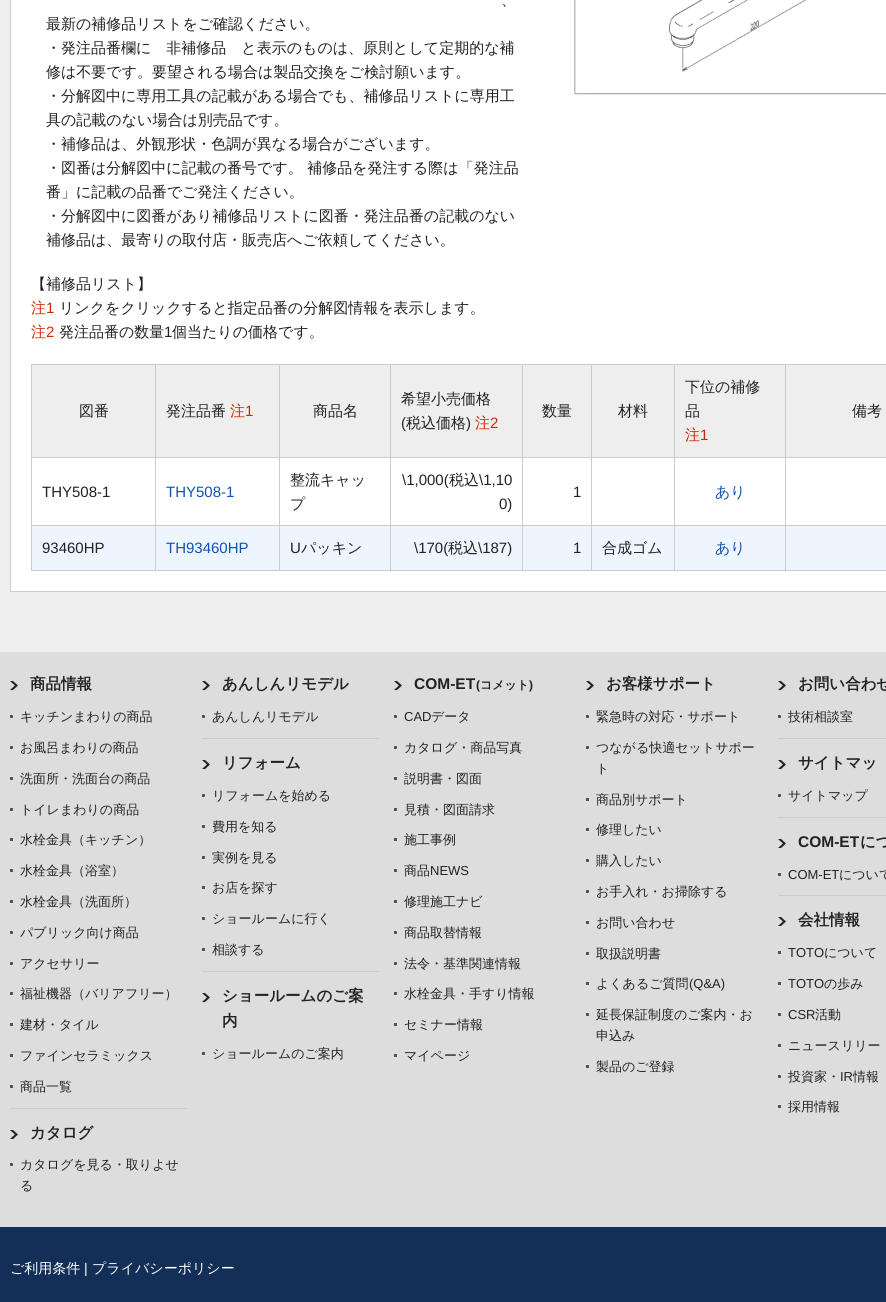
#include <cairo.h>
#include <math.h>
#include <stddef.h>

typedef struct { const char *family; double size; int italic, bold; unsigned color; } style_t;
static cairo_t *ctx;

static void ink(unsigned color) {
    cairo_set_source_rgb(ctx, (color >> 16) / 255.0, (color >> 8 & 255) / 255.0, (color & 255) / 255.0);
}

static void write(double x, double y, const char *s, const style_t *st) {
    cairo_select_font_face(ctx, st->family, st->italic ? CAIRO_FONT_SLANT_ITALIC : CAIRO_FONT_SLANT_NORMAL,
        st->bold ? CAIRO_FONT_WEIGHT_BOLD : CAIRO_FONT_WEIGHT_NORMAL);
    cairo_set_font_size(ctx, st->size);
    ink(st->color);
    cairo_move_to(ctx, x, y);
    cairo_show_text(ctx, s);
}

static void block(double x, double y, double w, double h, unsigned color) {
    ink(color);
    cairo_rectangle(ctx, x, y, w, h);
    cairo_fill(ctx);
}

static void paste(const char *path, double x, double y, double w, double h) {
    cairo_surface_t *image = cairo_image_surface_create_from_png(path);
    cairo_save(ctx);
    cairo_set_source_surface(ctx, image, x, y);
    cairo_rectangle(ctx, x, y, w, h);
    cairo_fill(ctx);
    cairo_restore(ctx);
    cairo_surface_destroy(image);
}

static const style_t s1 = {"WenQuanYi Zen Hei Medium", 15, 0, 0, 0x222222};
static const style_t s2 = {"WenQuanYi Zen Hei Medium", 15, 0, 0, 0xcb2b00};
static const style_t s3 = {"Liberation Sans", 15, 0, 0, 0xcb2b00};
static const style_t s4 = {"Liberation Sans", 15, 0, 0, 0x222222};
static const style_t s5 = {"Liberation Sans", 15, 0, 0, 0x1152b2};
static const style_t s6 = {"WenQuanYi Zen Hei Medium", 15, 0, 0, 0x1152b2};
static const style_t s7 = {"WenQuanYi Zen Hei", 15.5, 0, 1, 0x222222};
static const style_t s8 = {"WenQuanYi Zen Hei Medium", 13, 0, 0, 0x222222};
static const style_t s9 = {"Liberation Sans", 15.5, 0, 1, 0x222222};
static const style_t s10 = {"Liberation Sans", 12, 0, 1, 0x222222};
static const style_t s11 = {"WenQuanYi Zen Hei", 12, 0, 1, 0x222222};
static const style_t s12 = {"Liberation Sans", 13, 0, 0, 0x222222};
static const style_t s13 = {"WenQuanYi Zen Hei Medium", 14, 0, 0, 0xffffff};
static const style_t s14 = {"Liberation Sans", 14, 0, 0, 0xffffff};

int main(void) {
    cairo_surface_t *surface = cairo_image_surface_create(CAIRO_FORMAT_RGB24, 886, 1302);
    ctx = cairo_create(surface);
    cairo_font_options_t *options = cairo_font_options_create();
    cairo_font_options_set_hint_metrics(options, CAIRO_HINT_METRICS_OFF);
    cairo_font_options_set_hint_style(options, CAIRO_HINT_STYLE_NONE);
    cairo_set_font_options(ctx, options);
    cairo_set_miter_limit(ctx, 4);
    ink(0xeeeeee);
    cairo_paint(ctx);
    ink(0xffffff);
    cairo_rectangle(ctx, 10.5, -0.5, 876, 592);
    cairo_fill_preserve(ctx);
    ink(0xcccccc);
    cairo_set_line_width(ctx, 1);
    cairo_stroke(ctx);
    write(501, 5, "、", &s1);
    write(46, 29, "最新の補修品リストをご確認ください。", &s1);
    write(46, 53, "・発注品番欄に　非補修品　と表示のものは、原則として定期的な補", &s1);
    write(46, 77, "修は不要です。要望される場合は製品交換をご検討願います。", &s1);
    write(46, 101, "・分解図中に専用工具の記載がある場合でも、補修品リストに専用工", &s1);
    write(46, 125, "具の記載のない場合は別売品です。", &s1);
    write(46, 149, "・補修品は、外観形状・色調が異なる場合がございます。", &s1);
    write(46, 173, "・図番は分解図中に記載の番号です。 補修品を発注する際は「発注品", &s1);
    write(46, 197, "番」に記載の品番でご発注ください。", &s1);
    write(46, 221, "・分解図中に図番があり補修品リストに図番・発注品番の記載のない", &s1);
    write(46, 245, "補修品は、最寄りの取付店・販売店へご依頼してください。", &s1);
    paste("pic1.png", 574, 0, 312, 95);
    write(31, 289, "【補修品リスト】", &s1);
    write(31, 313, "注", &s2);
    write(46, 313, "1", &s3);
    write(59, 313, "リンクをクリックすると指定品番の分解図情報を表示します。", &s1);
    write(31, 337, "注", &s2);
    write(46, 337, "2", &s3);
    write(59, 337, "発注品番の数量", &s1);
    write(164, 337, "1", &s4);
    write(172, 337, "個当たりの価格です。", &s1);
    block(32, 365, 123, 92, 0xeeeeee);
    block(785, 364, 101, 1, 0xcccccc);
    block(785, 457, 101, 1, 0xcccccc);
    block(785, 525, 101, 1, 0xcccccc);
    block(32, 526, 854, 44, 0xedf5ff);
    block(785, 570, 101, 1, 0xcccccc);
    block(785, 525, 1, 46, 0xcccccc);
    block(674, 525, 112, 1, 0xcccccc);
    block(785, 457, 1, 69, 0xcccccc);
    block(674, 457, 112, 1, 0xcccccc);
    block(785, 364, 1, 94, 0xcccccc);
    block(674, 364, 112, 1, 0xcccccc);
    block(674, 570, 112, 1, 0xcccccc);
    block(674, 525, 1, 46, 0xcccccc);
    block(591, 525, 84, 1, 0xcccccc);
    block(674, 457, 1, 69, 0xcccccc);
    block(591, 457, 84, 1, 0xcccccc);
    block(674, 364, 1, 94, 0xcccccc);
    block(591, 364, 84, 1, 0xcccccc);
    block(591, 570, 84, 1, 0xcccccc);
    block(591, 525, 1, 46, 0xcccccc);
    block(522, 525, 70, 1, 0xcccccc);
    block(591, 457, 1, 69, 0xcccccc);
    block(522, 457, 70, 1, 0xcccccc);
    block(591, 364, 1, 94, 0xcccccc);
    block(522, 364, 70, 1, 0xcccccc);
    block(522, 570, 70, 1, 0xcccccc);
    block(522, 525, 1, 46, 0xcccccc);
    block(390, 525, 133, 1, 0xcccccc);
    block(522, 457, 1, 69, 0xcccccc);
    block(390, 457, 133, 1, 0xcccccc);
    block(522, 364, 1, 94, 0xcccccc);
    block(390, 364, 133, 1, 0xcccccc);
    block(390, 570, 133, 1, 0xcccccc);
    block(390, 525, 1, 46, 0xcccccc);
    block(279, 525, 112, 1, 0xcccccc);
    block(390, 457, 1, 69, 0xcccccc);
    block(279, 457, 112, 1, 0xcccccc);
    block(390, 364, 1, 94, 0xcccccc);
    block(279, 364, 112, 1, 0xcccccc);
    block(279, 570, 112, 1, 0xcccccc);
    block(279, 525, 1, 46, 0xcccccc);
    block(155, 525, 125, 1, 0xcccccc);
    block(279, 457, 1, 69, 0xcccccc);
    block(155, 457, 125, 1, 0xcccccc);
    block(279, 364, 1, 94, 0xcccccc);
    block(155, 364, 125, 1, 0xcccccc);
    block(155, 570, 125, 1, 0xcccccc);
    block(155, 525, 1, 46, 0xcccccc);
    block(31, 525, 125, 1, 0xcccccc);
    block(155, 457, 1, 69, 0xcccccc);
    block(31, 457, 125, 1, 0xcccccc);
    block(155, 364, 1, 94, 0xcccccc);
    block(31, 364, 125, 1, 0xcccccc);
    block(31, 570, 125, 1, 0xcccccc);
    block(31, 525, 1, 46, 0xcccccc);
    block(31, 457, 1, 69, 0xcccccc);
    block(31, 364, 1, 94, 0xcccccc);
    write(79, 416, "図番", &s1);
    block(156, 365, 123, 92, 0xeeeeee);
    write(166, 416, "発注品番", &s1);
    write(230, 416, "注", &s2);
    write(245, 416, "1", &s3);
    block(280, 365, 110, 92, 0xeeeeee);
    write(313, 416, "商品名", &s1);
    block(391, 365, 131, 92, 0xeeeeee);
    write(401, 404, "希望小売価格", &s1);
    write(401, 428, "(", &s4);
    write(406, 428, "税込価格", &s1);
    write(466, 428, ")", &s4);
    write(475, 428, "注", &s2);
    write(490, 428, "2", &s3);
    block(523, 365, 68, 92, 0xeeeeee);
    write(542, 416, "数量", &s1);
    block(592, 365, 82, 92, 0xeeeeee);
    write(618, 416, "材料", &s1);
    block(675, 365, 110, 92, 0xeeeeee);
    write(685, 392, "下位の補修", &s1);
    write(685, 416, "品", &s1);
    write(685, 440, "注", &s2);
    write(700, 440, "1", &s3);
    block(786, 365, 100, 92, 0xeeeeee);
    write(852, 416, "備考", &s1);
    write(42, 497, "THY508-1", &s4);
    write(166, 497, "THY508-1", &s5);
    write(290, 485, "整流キャッ", &s1);
    write(290, 509, "プ", &s1);
    write(402, 485, "\\1,000(", &s4);
    write(449, 485, "税込", &s1);
    write(479, 485, "\\1,10", &s4);
    write(499, 509, "0)", &s4);
    write(573, 497, "1", &s4);
    write(715, 497, "あり", &s6);
    write(42, 553, "93460HP", &s4);
    write(166, 553, "TH93460HP", &s5);
    write(290, 553, "U", &s4);
    write(301, 553, "パッキン", &s1);
    write(414, 553, "\\170(", &s4);
    write(448, 553, "税込", &s1);
    write(478, 553, "\\187)", &s4);
    write(573, 553, "1", &s4);
    write(602, 553, "合成ゴム", &s1);
    write(715, 553, "あり", &s6);
    block(0, 652, 886, 575, 0xdddddd);
    paste("pic2.png", 10, 681, 8, 9);
    write(30, 689, "商品情報", &s7);
    block(10, 715, 3, 3, 0x555555);
    write(20, 721, "キッチンまわりの商品", &s8);
    block(10, 746, 3, 3, 0x555555);
    write(20, 752, "お風呂まわりの商品", &s8);
    block(10, 777, 3, 3, 0x555555);
    write(20, 783, "洗面所・洗面台の商品", &s8);
    block(10, 808, 3, 3, 0x555555);
    write(20, 814, "トイレまわりの商品", &s8);
    block(10, 838, 3, 3, 0x555555);
    write(20, 844, "水栓金具（キッチン）", &s8);
    block(10, 869, 3, 3, 0x555555);
    write(20, 875, "水栓金具（浴室）", &s8);
    block(10, 900, 3, 3, 0x555555);
    write(20, 906, "水栓金具（洗面所）", &s8);
    block(10, 931, 3, 3, 0x555555);
    write(20, 937, "パブリック向け商品", &s8);
    block(10, 962, 3, 3, 0x555555);
    write(20, 968, "アクセサリー", &s8);
    block(10, 992, 3, 3, 0x555555);
    write(20, 998, "福祉機器（バリアフリー）", &s8);
    block(10, 1023, 3, 3, 0x555555);
    write(20, 1029, "建材・タイル", &s8);
    block(10, 1054, 3, 3, 0x555555);
    write(20, 1060, "ファインセラミックス", &s8);
    block(10, 1085, 3, 3, 0x555555);
    write(20, 1091, "商品一覧", &s8);
    block(10, 1108, 177, 1, 0xcccccc);
    paste("pic2.png", 10, 1130, 8, 9);
    write(30, 1138, "カタログ", &s7);
    block(10, 1163, 3, 3, 0x555555);
    write(20, 1169, "カタログを見る・取りよせ", &s8);
    write(20, 1190, "る", &s8);
    paste("pic2.png", 202, 681, 8, 9);
    write(222, 689, "あんしんリモデル", &s7);
    block(202, 715, 3, 3, 0x555555);
    write(212, 721, "あんしんリモデル", &s8);
    block(202, 738, 177, 1, 0xcccccc);
    paste("pic2.png", 202, 760, 8, 9);
    write(222, 768, "リフォーム", &s7);
    block(202, 794, 3, 3, 0x555555);
    write(212, 800, "リフォームを始める", &s8);
    block(202, 825, 3, 3, 0x555555);
    write(212, 831, "費用を知る", &s8);
    block(202, 856, 3, 3, 0x555555);
    write(212, 862, "実例を見る", &s8);
    block(202, 886, 3, 3, 0x555555);
    write(212, 892, "お店を探す", &s8);
    block(202, 917, 3, 3, 0x555555);
    write(212, 923, "ショールームに行く", &s8);
    block(202, 948, 3, 3, 0x555555);
    write(212, 954, "相談する", &s8);
    block(202, 971, 177, 1, 0xcccccc);
    paste("pic2.png", 202, 993, 8, 9);
    write(222, 1001, "ショールームのご案", &s7);
    write(222, 1026, "内", &s7);
    block(202, 1052, 3, 3, 0x555555);
    write(212, 1058, "ショールームのご案内", &s8);
    paste("pic2.png", 394, 681, 8, 9);
    write(414, 689, "COM-ET", &s9);
    write(476, 689, "(", &s10);
    write(480, 689, "コメット", &s11);
    write(529, 689, ")", &s10);
    block(394, 715, 3, 3, 0x555555);
    write(404, 721, "CAD", &s12);
    write(431, 721, "データ", &s8);
    block(394, 746, 3, 3, 0x555555);
    write(404, 752, "カタログ・商品写真", &s8);
    block(394, 777, 3, 3, 0x555555);
    write(404, 783, "説明書・図面", &s8);
    block(394, 808, 3, 3, 0x555555);
    write(404, 814, "見積・図面請求", &s8);
    block(394, 838, 3, 3, 0x555555);
    write(404, 844, "施工事例", &s8);
    block(394, 869, 3, 3, 0x555555);
    write(404, 875, "商品", &s8);
    write(430, 875, "NEWS", &s12);
    block(394, 900, 3, 3, 0x555555);
    write(404, 906, "修理施工ナビ", &s8);
    block(394, 931, 3, 3, 0x555555);
    write(404, 937, "商品取替情報", &s8);
    block(394, 962, 3, 3, 0x555555);
    write(404, 968, "法令・基準関連情報", &s8);
    block(394, 992, 3, 3, 0x555555);
    write(404, 998, "水栓金具・手すり情報", &s8);
    block(394, 1023, 3, 3, 0x555555);
    write(404, 1029, "セミナー情報", &s8);
    block(394, 1054, 3, 3, 0x555555);
    write(404, 1060, "マイページ", &s8);
    paste("pic2.png", 586, 681, 8, 9);
    write(606, 689, "お客様サポート", &s7);
    block(586, 715, 3, 3, 0x555555);
    write(596, 721, "緊急時の対応・サポート", &s8);
    block(586, 746, 3, 3, 0x555555);
    write(596, 752, "つながる快適セットサポー", &s8);
    write(596, 773, "ト", &s8);
    block(586, 798, 3, 3, 0x555555);
    write(596, 804, "商品別サポート", &s8);
    block(586, 828, 3, 3, 0x555555);
    write(596, 834, "修理したい", &s8);
    block(586, 859, 3, 3, 0x555555);
    write(596, 865, "購入したい", &s8);
    block(586, 890, 3, 3, 0x555555);
    write(596, 896, "お手入れ・お掃除する", &s8);
    block(586, 921, 3, 3, 0x555555);
    write(596, 927, "お問い合わせ", &s8);
    block(586, 952, 3, 3, 0x555555);
    write(596, 958, "取扱説明書", &s8);
    block(586, 982, 3, 3, 0x555555);
    write(596, 988, "よくあるご質問", &s8);
    write(689, 988, "(Q&A)", &s12);
    block(586, 1013, 3, 3, 0x555555);
    write(596, 1019, "延長保証制度のご案内・お", &s8);
    write(596, 1040, "申込み", &s8);
    block(586, 1065, 3, 3, 0x555555);
    write(596, 1071, "製品のご登録", &s8);
    paste("pic2.png", 778, 681, 8, 9);
    write(798, 689, "お問い合わせ", &s7);
    block(778, 715, 3, 3, 0x555555);
    write(788, 721, "技術相談室", &s8);
    block(778, 738, 108, 1, 0xcccccc);
    paste("pic2.png", 778, 760, 8, 9);
    write(798, 768, "サイトマッ", &s7);
    block(778, 794, 3, 3, 0x555555);
    write(788, 800, "サイトマップ", &s8);
    block(778, 817, 108, 1, 0xcccccc);
    paste("pic2.png", 778, 839, 8, 9);
    write(798, 847, "COM-ET", &s9);
    write(860, 847, "につ", &s7);
    block(778, 873, 3, 3, 0x555555);
    write(788, 879, "COM-ET", &s12);
    write(839, 879, "について", &s8);
    block(778, 895, 108, 1, 0xcccccc);
    paste("pic2.png", 778, 917, 8, 9);
    write(798, 925, "会社情報", &s7);
    block(778, 951, 3, 3, 0x555555);
    write(788, 957, "TOTO", &s12);
    write(824, 957, "について", &s8);
    block(778, 982, 3, 3, 0x555555);
    write(788, 988, "TOTO", &s12);
    write(824, 988, "の歩み", &s8);
    block(778, 1013, 3, 3, 0x555555);
    write(788, 1019, "CSR", &s12);
    write(815, 1019, "活動", &s8);
    block(778, 1044, 3, 3, 0x555555);
    write(788, 1050, "ニュースリリー", &s8);
    block(778, 1075, 3, 3, 0x555555);
    write(788, 1081, "投資家・", &s8);
    write(840, 1081, "IR", &s12);
    write(853, 1081, "情報", &s8);
    block(778, 1105, 3, 3, 0x555555);
    write(788, 1111, "採用情報", &s8);
    block(0, 1227, 886, 75, 0x142f57);
    write(10, 1273, "ご利用条件", &s13);
    write(84, 1273, "|", &s14);
    write(92, 1273, "プライバシーポリシー", &s13);
    cairo_surface_write_to_png(surface, "screenshot.png");
    cairo_font_options_destroy(options);
    cairo_destroy(ctx);
    cairo_surface_destroy(surface);
    return 0;
}
